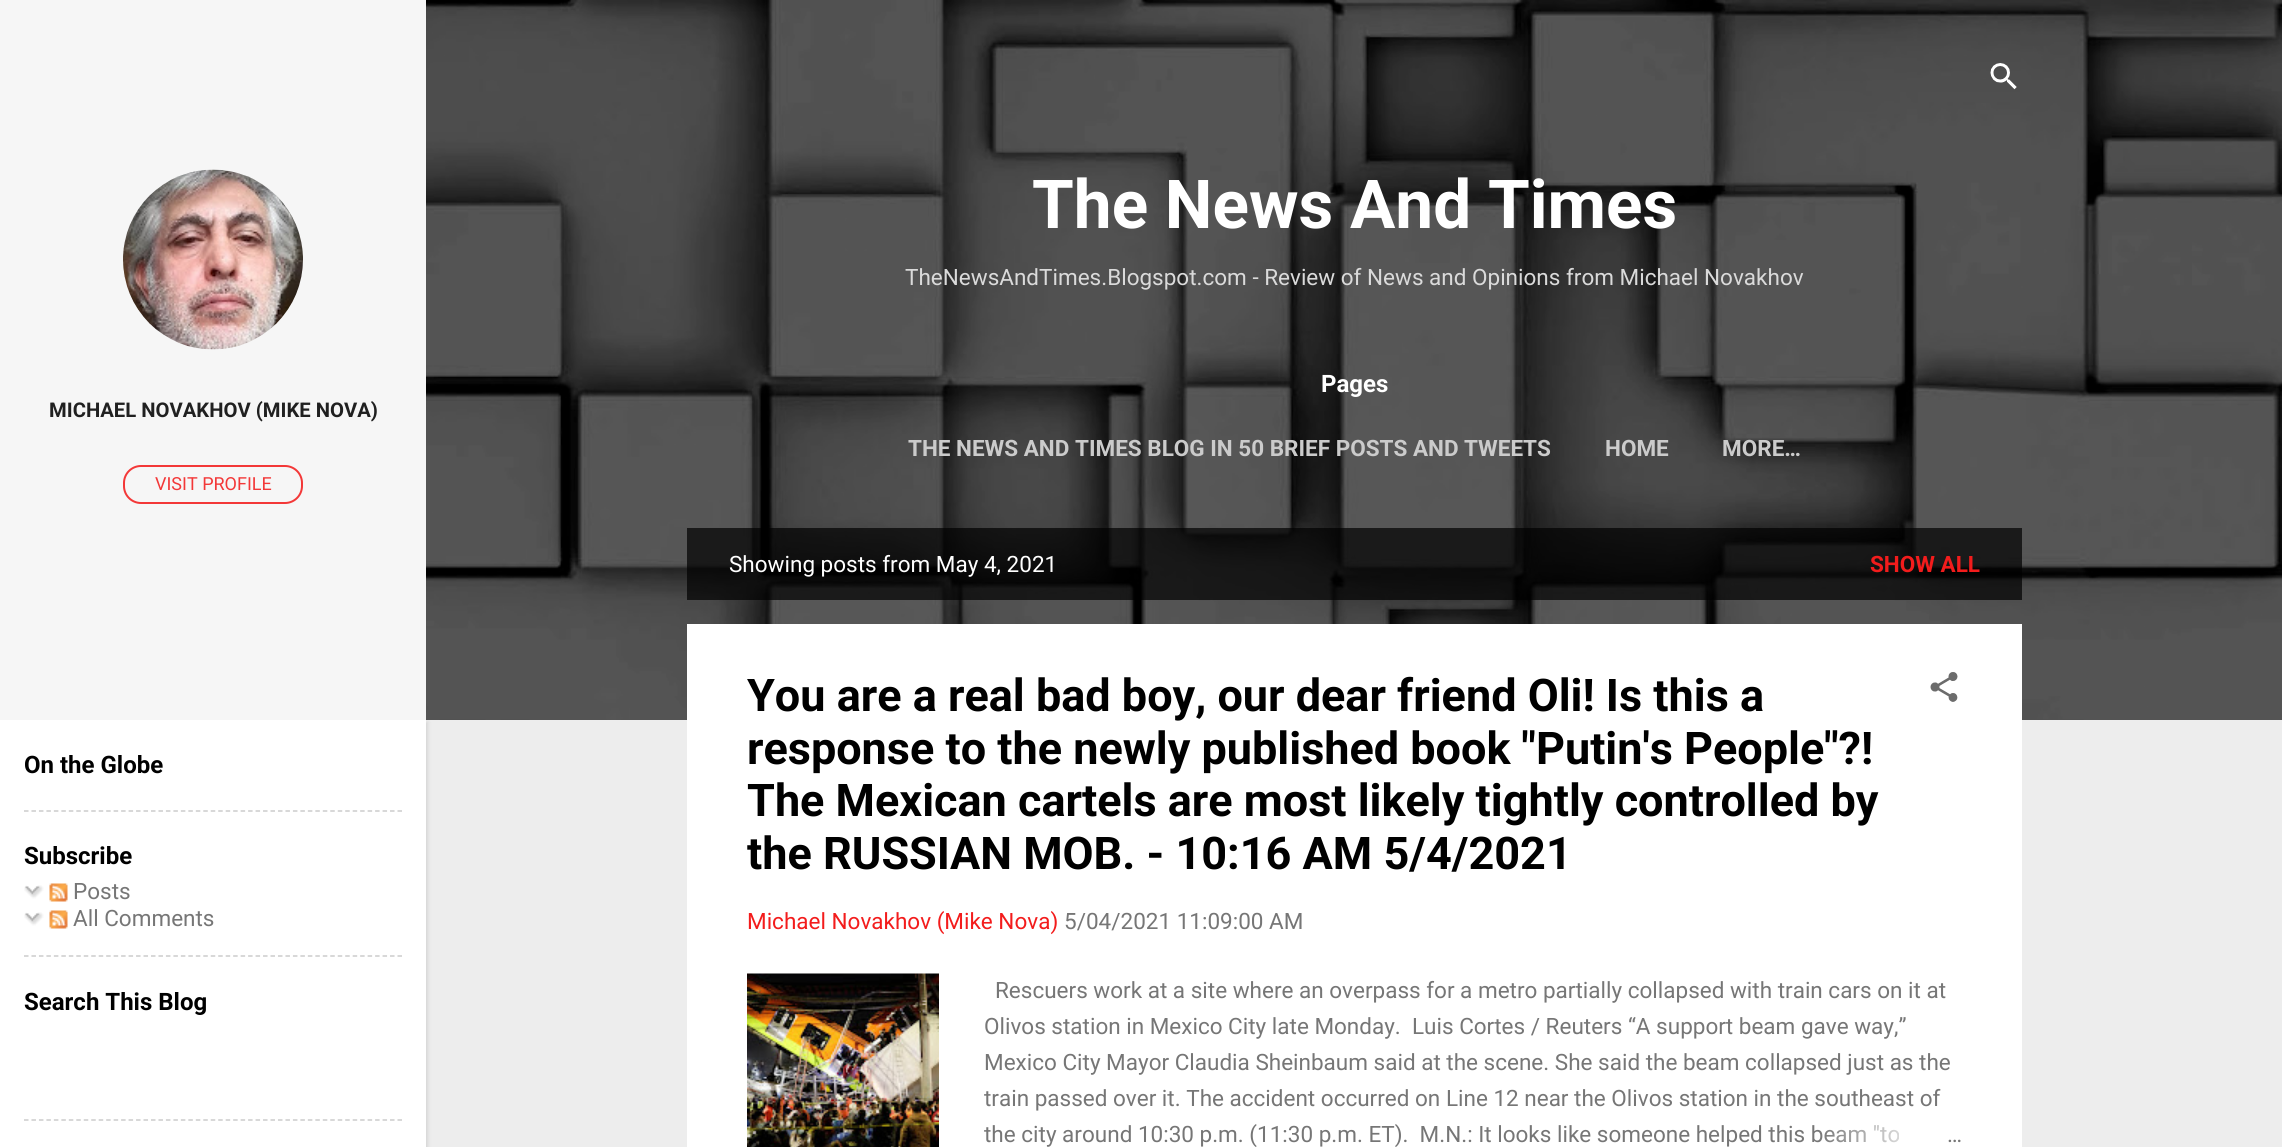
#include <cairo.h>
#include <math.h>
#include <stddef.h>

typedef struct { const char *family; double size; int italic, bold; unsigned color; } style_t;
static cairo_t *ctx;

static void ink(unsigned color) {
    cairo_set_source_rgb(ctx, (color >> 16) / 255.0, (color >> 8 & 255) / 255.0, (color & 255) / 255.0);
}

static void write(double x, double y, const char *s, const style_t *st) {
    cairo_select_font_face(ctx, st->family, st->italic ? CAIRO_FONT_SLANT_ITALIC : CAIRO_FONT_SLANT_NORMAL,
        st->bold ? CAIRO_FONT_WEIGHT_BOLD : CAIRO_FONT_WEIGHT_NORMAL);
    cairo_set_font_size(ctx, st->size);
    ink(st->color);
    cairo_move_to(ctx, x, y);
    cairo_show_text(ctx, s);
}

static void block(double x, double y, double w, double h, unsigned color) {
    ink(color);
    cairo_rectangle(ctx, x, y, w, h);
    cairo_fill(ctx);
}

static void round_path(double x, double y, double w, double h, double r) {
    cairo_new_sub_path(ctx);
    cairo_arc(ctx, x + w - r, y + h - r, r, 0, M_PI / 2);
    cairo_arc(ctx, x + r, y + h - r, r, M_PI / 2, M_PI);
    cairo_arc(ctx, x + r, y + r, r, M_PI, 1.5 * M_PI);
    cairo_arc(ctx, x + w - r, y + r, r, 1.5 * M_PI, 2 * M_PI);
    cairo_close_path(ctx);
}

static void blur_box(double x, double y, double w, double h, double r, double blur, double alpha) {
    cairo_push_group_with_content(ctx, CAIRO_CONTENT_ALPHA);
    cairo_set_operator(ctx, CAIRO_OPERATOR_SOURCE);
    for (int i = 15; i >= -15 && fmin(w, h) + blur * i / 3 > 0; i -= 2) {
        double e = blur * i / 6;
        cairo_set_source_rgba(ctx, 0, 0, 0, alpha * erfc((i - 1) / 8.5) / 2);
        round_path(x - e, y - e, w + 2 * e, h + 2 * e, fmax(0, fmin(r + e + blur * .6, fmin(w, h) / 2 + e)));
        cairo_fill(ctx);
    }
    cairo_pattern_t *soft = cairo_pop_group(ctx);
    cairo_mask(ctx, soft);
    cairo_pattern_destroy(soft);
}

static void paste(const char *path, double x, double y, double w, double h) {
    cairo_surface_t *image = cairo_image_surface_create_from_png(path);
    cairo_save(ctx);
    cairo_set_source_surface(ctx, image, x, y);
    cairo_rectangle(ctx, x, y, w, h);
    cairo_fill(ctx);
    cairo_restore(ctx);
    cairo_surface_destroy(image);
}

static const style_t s1 = {"Roboto", 20.25, 0, 1, 0x202020};
static const style_t s2 = {"Roboto", 18, 0, 0, 0xf33838};
static const style_t s3 = {"Roboto", 24, 0, 1, 0x000000};
static const style_t s4 = {"Roboto", 22.5, 0, 0, 0x767676};
static const style_t s5 = {"Roboto", 67.5, 0, 1, 0xffffff};
static const style_t s6 = {"Roboto", 22.5, 0, 0, 0xdadada};
static const style_t s7 = {"Roboto", 24, 0, 1, 0xffffff};
static const style_t s8 = {"Roboto", 22.5, 0, 1, 0xcbcbcb};
static const style_t s9 = {"Roboto", 22.5, 0, 0, 0xffffff};
static const style_t s10 = {"Roboto", 22.5, 0, 1, 0xf31c1c};
static const style_t s11 = {"Roboto", 45, 0, 1, 0x000000};
static const style_t s12 = {"Roboto", 22.5, 0, 0, 0xf31c1c};

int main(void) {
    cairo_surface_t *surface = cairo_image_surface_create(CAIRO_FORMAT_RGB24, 2282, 1147);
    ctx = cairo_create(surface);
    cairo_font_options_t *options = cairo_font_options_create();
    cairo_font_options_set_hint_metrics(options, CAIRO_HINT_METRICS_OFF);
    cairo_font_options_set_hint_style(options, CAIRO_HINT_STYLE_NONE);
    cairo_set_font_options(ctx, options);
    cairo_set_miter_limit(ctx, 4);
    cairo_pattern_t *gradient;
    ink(0xededed);
    cairo_paint(ctx);
    paste("pic4.png", 426, 0, 1856, 720);
    ink(0x000000);
    blur_box(2, 722, 426, 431, 0, 2, 0.1);
    block(0, 720, 426, 427, 0xffffff);
    block(0, 0, 426, 720, 0xf6f6f6);
    paste("pic1.png", 123, 169, 180, 181);
    write(49, 417, "MICHAEL NOVAKHOV (MIKE NOVA)", &s1);
    round_path(124, 466, 178, 37, 17);
    ink(0xf33838);
    cairo_stroke(ctx);
    write(155, 490, "VISIT PROFILE", &s2);
    write(24, 773, "On the Globe", &s3);
    cairo_new_path(ctx);
    cairo_move_to(ctx, 24, 811);
    cairo_line_to(ctx, 402, 811);
    ink(0xcbcbcb);
    cairo_set_line_width(ctx, 1.5);
    cairo_set_dash(ctx, (double[]){4.5, 2.97}, 2, 0);
    cairo_stroke(ctx);
    write(24, 864, "Subscribe", &s3);
    paste("pic2.png", 24, 885, 20, 14);
    paste("pic3.png", 49, 883, 19, 19);
    write(73, 899, "Posts", &s4);
    paste("pic2.png", 24, 912, 20, 14);
    paste("pic3.png", 49, 910, 19, 19);
    write(73, 926, "All Comments", &s4);
    cairo_new_path(ctx);
    cairo_move_to(ctx, 24, 956);
    cairo_line_to(ctx, 402, 956);
    ink(0xcbcbcb);
    cairo_stroke(ctx);
    write(24, 1010, "Search This Blog", &s3);
    cairo_new_path(ctx);
    cairo_move_to(ctx, 24, 1120);
    cairo_line_to(ctx, 402, 1120);
    ink(0xcbcbcb);
    cairo_stroke(ctx);
    paste("pic5.png", 1990, 63, 27, 27);
    write(1032, 228, "The News And Times", &s5);
    write(905, 285, "TheNewsAndTimes.Blogspot.com - Review of News and Opinions from Michael Novakhov", &s6);
    write(1321, 392, "Pages", &s7);
    write(908, 456, "THE NEWS AND TIMES BLOG IN 50 BRIEF POSTS AND TWEETS", &s8);
    write(1605, 456, "HOME", &s8);
    write(1722, 456, "MORE…", &s8);
    cairo_set_source_rgba(ctx, 0, 0, 0, 0.7);
    cairo_rectangle(ctx, 687, 528, 1335, 72);
    cairo_fill(ctx);
    write(729, 572, "Showing posts from May 4, 2021", &s9);
    write(1870, 572, "SHOW ALL", &s10);
    block(687, 624, 1335, 523, 0xffffff);
    write(747, 711, "You are a real bad boy, our dear friend Oli! Is this a", &s11);
    write(747, 764, "response to the newly published book \"Putin's People\"?!", &s11);
    write(747, 816, "The Mexican cartels are most likely tightly controlled by", &s11);
    write(747, 869, "the RUSSIAN MOB. - 10:16 AM 5/4/2021", &s11);
    paste("pic6.png", 1930, 672, 28, 30);
    write(747, 929, "Michael Novakhov (Mike Nova)", &s12);
    write(1064, 929, "5/04/2021 11:09:00 AM", &s4);
    paste("pic7.png", 747, 973, 192, 174);
    write(995, 998, "Rescuers work at a site where an overpass for a metro partially collapsed with train cars on it at", &s4);
    write(984, 1034, "Olivos station in Mexico City late Monday.  Luis Cortes / Reuters “A support beam gave way,”", &s4);
    write(984, 1070, "Mexico City Mayor Claudia Sheinbaum said at the scene. She said the beam collapsed just as the", &s4);
    write(984, 1106, "train passed over it. The accident occurred on Line 12 near the Olivos station in the southeast of", &s4);
    write(984, 1142, "the city around 10:30 p.m. (11:30 p.m. ET).  M.N.: It looks like someone helped this beam \"to", &s4);
    gradient = cairo_pattern_create_linear(1962, 1136, 1818, 1136);
    cairo_pattern_add_color_stop_rgba(gradient, 0, 1, 1, 1, 1);
    cairo_pattern_add_color_stop_rgba(gradient, 0.2, 1, 1, 1, 1);
    cairo_pattern_add_color_stop_rgba(gradient, 1, 1, 1, 1, 0);
    cairo_set_source(ctx, gradient);
    cairo_pattern_destroy(gradient);
    cairo_rectangle(ctx, 1820, 1125, 80, 18);
    cairo_fill(ctx);
    write(1947, 1142, "…", &s4);
    cairo_surface_write_to_png(surface, "screenshot.png");
    cairo_font_options_destroy(options);
    cairo_destroy(ctx);
    cairo_surface_destroy(surface);
    return 0;
}
